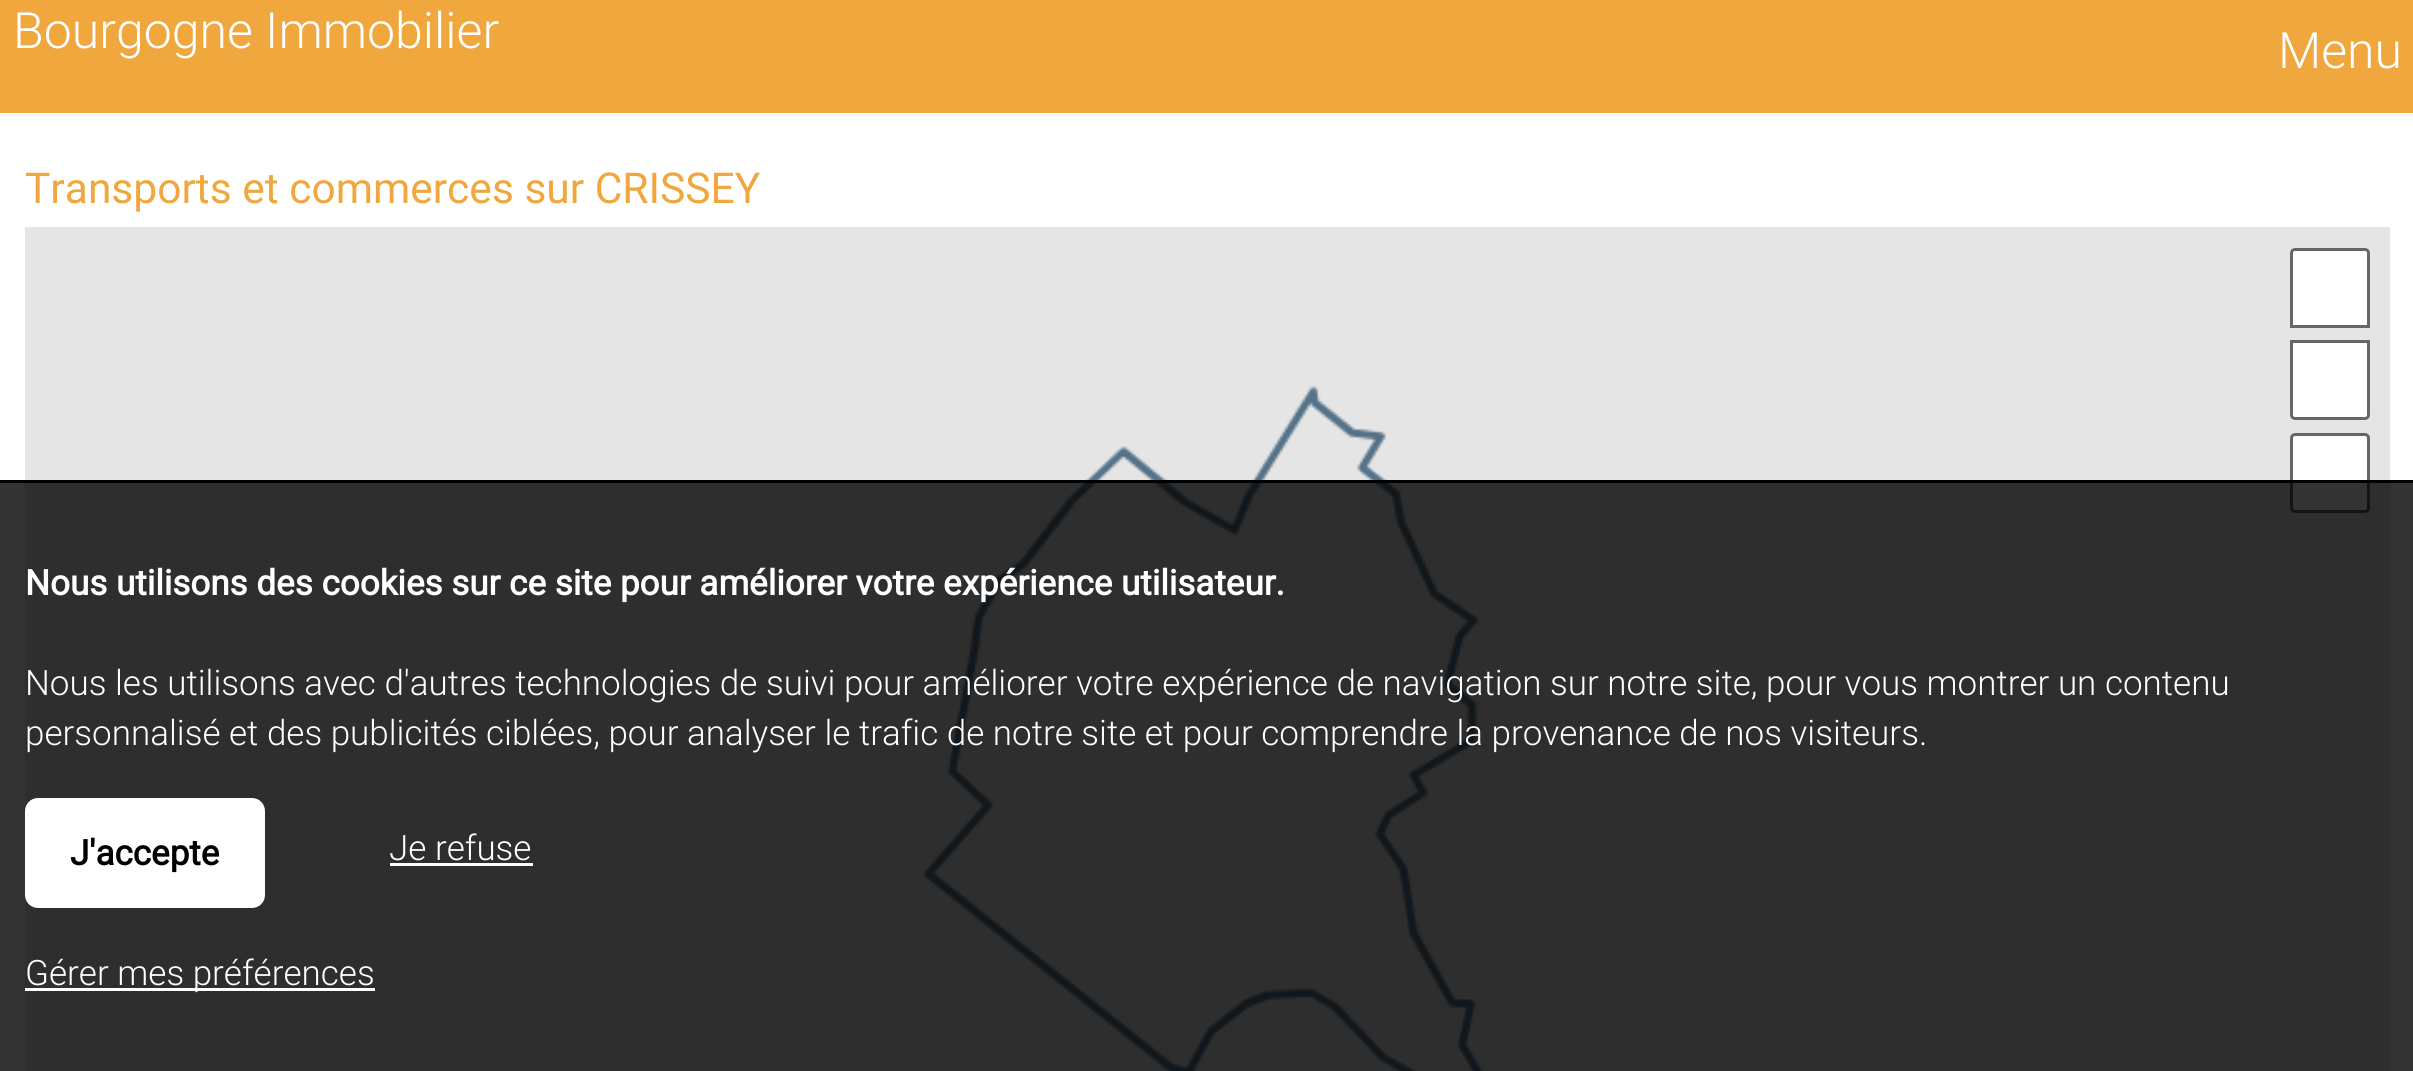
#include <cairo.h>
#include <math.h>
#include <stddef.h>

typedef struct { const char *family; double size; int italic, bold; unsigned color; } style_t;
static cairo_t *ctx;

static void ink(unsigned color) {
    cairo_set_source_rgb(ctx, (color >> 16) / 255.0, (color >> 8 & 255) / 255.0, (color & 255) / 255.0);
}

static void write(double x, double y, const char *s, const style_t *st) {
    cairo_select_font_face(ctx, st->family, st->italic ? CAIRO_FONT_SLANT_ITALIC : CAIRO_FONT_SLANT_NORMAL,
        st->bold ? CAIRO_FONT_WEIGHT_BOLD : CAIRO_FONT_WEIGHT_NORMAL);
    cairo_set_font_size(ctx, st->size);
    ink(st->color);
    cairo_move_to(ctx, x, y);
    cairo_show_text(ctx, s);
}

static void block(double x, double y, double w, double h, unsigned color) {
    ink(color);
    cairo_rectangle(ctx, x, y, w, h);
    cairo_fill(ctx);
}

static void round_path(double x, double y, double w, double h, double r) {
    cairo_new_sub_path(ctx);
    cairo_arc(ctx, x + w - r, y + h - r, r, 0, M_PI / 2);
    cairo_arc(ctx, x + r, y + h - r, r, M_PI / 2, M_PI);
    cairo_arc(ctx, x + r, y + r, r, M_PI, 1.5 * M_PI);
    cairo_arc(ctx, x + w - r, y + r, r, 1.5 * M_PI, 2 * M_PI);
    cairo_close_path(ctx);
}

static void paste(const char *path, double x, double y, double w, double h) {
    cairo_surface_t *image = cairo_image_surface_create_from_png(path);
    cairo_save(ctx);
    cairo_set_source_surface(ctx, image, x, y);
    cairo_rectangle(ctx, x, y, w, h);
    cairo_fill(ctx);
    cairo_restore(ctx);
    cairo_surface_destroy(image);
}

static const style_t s1 = {"Roboto Light", 50, 0, 0, 0xffffff};
static const style_t s2 = {"Roboto", 42.5, 0, 0, 0xf0a73e};
static const style_t s3 = {"Roboto", 35, 0, 1, 0xffffff};
static const style_t s4 = {"Roboto Light", 35, 0, 0, 0xffffff};
static const style_t s5 = {"Roboto", 35, 0, 1, 0x000000};

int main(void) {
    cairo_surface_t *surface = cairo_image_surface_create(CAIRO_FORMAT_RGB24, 2413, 1071);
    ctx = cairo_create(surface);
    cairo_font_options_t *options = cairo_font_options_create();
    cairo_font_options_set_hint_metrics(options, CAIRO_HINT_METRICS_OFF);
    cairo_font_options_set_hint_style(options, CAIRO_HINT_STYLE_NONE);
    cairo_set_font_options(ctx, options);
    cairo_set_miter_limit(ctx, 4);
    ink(0xffffff);
    cairo_paint(ctx);
    block(0, 0, 2413, 113, 0xf0a73e);
    write(13, 48, "Bourgogne Immobilier", &s1);
    write(2278, 68, "Menu", &s1);
    write(25, 203, "Transports et commerces sur CRISSEY", &s2);
    paste("pic1.png", 25, 227, 2365, 844);
    ink(0xffffff);
    cairo_new_path(ctx);
    cairo_move_to(ctx, 2295, 249.5);
    cairo_line_to(ctx, 2365, 249.5);
    cairo_curve_to(ctx, 2367, 249.5, 2368.5, 251, 2368.5, 253);
    cairo_line_to(ctx, 2368.5, 326.5);
    cairo_line_to(ctx, 2291.5, 326.5);
    cairo_line_to(ctx, 2291.5, 253);
    cairo_curve_to(ctx, 2291.5, 251, 2293, 249.5, 2295, 249.5);
    cairo_close_path(ctx);
    cairo_fill_preserve(ctx);
    ink(0x666666);
    cairo_set_line_width(ctx, 3);
    cairo_stroke(ctx);
    ink(0xffffff);
    cairo_new_path(ctx);
    cairo_move_to(ctx, 2291.5, 341.5);
    cairo_line_to(ctx, 2368.5, 341.5);
    cairo_line_to(ctx, 2368.5, 415);
    cairo_curve_to(ctx, 2368.5, 417, 2367, 418.5, 2365, 418.5);
    cairo_line_to(ctx, 2295, 418.5);
    cairo_curve_to(ctx, 2293, 418.5, 2291.5, 417, 2291.5, 415);
    cairo_close_path(ctx);
    cairo_fill_preserve(ctx);
    ink(0x666666);
    cairo_stroke(ctx);
    ink(0xffffff);
    round_path(2291.5, 434.5, 77, 77, 3.5);
    cairo_fill_preserve(ctx);
    ink(0x666666);
    cairo_stroke(ctx);
    cairo_set_source_rgba(ctx, 0, 0, 0, 0.8);
    cairo_rectangle(ctx, 0, 483, 2413, 588);
    cairo_fill(ctx);
    block(0, 480, 2413, 3, 0x000000);
    write(25, 595, "Nous utilisons des cookies sur ce site pour améliorer votre expérience utilisateur.", &s3);
    write(25, 695, "Nous les utilisons avec d'autres technologies de suivi pour améliorer votre expérience de navigation sur notre site, pour vous montrer un contenu", &s4);
    write(25, 745, "personnalisé et des publicités ciblées, pour analyser le trafic de notre site et pour comprendre la provenance de nos visiteurs.", &s4);
    round_path(25, 798, 240, 110, 13);
    cairo_fill(ctx);
    write(70, 865, "J'accepte", &s5);
    write(389, 860, "Je refuse", &s4);
    block(390, 863, 143, 3, 0xffffff);
    block(25, 988, 350, 3, 0xffffff);
    write(25, 985, "Gérer mes préférences", &s4);
    cairo_surface_write_to_png(surface, "screenshot.png");
    cairo_font_options_destroy(options);
    cairo_destroy(ctx);
    cairo_surface_destroy(surface);
    return 0;
}
